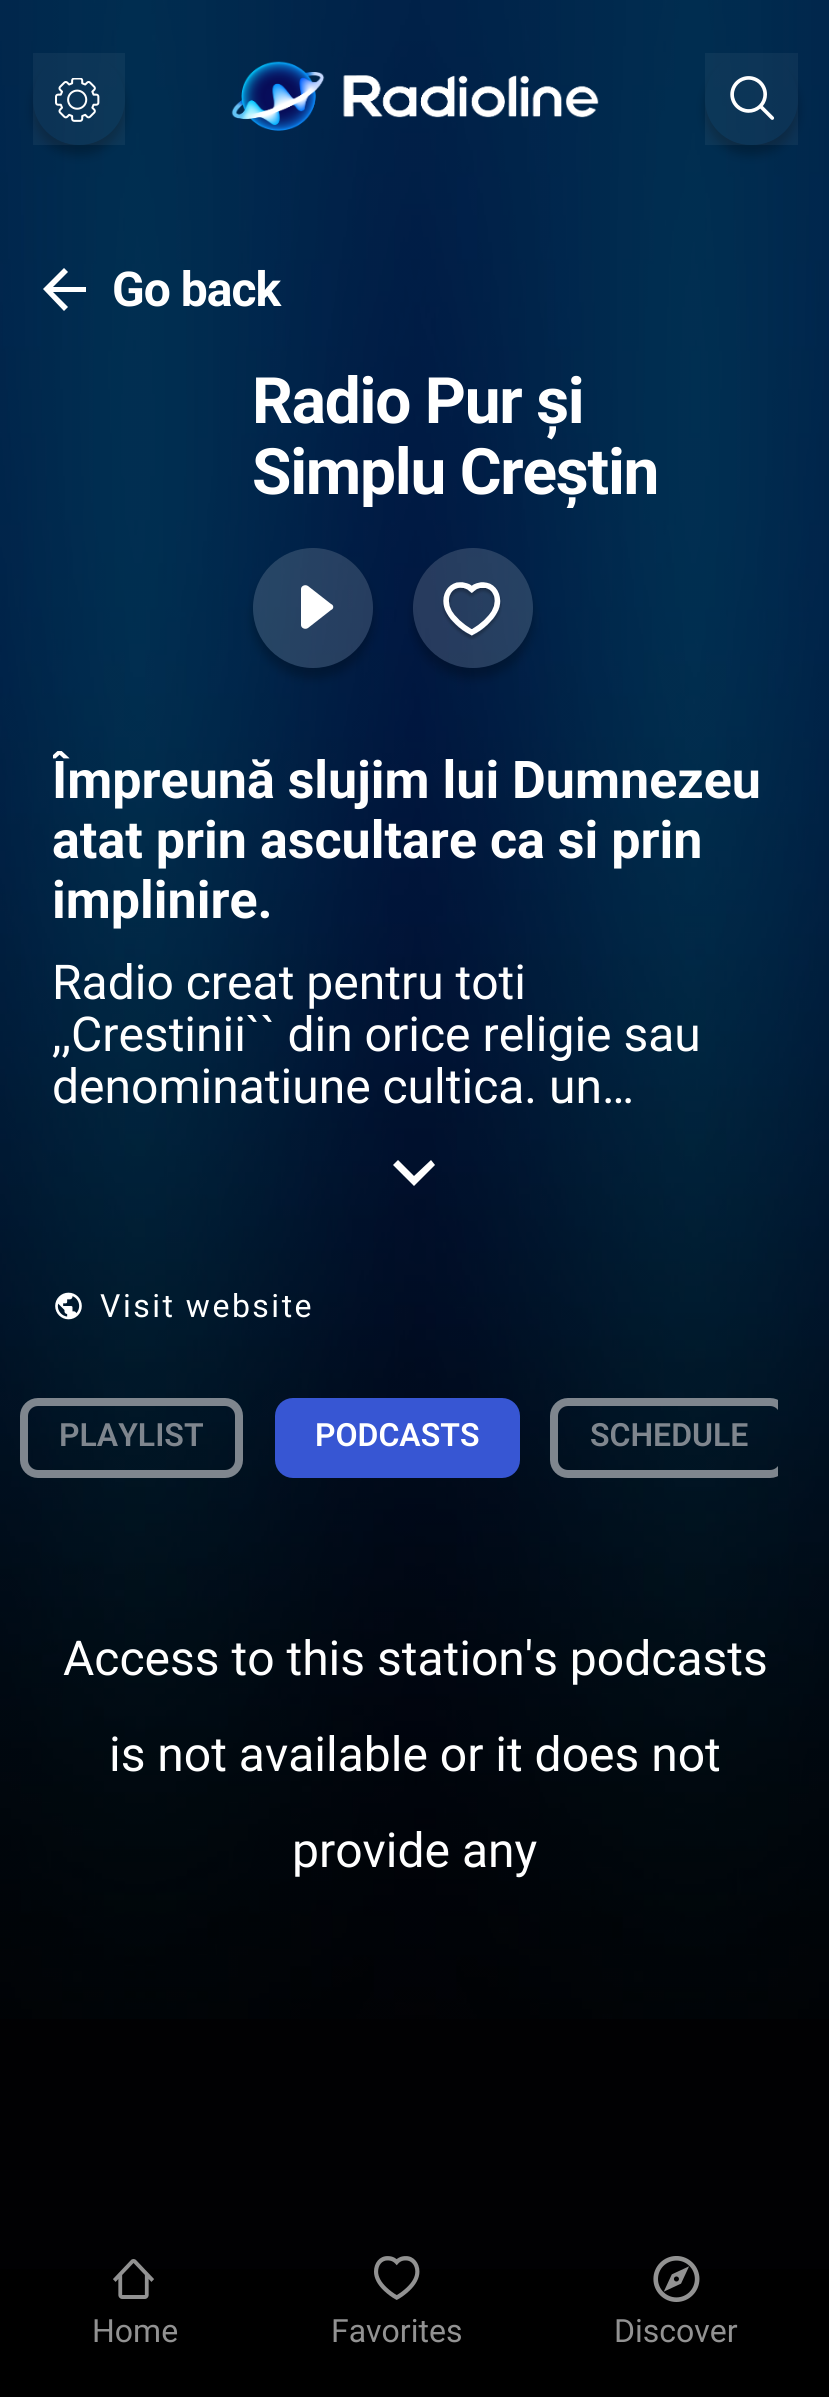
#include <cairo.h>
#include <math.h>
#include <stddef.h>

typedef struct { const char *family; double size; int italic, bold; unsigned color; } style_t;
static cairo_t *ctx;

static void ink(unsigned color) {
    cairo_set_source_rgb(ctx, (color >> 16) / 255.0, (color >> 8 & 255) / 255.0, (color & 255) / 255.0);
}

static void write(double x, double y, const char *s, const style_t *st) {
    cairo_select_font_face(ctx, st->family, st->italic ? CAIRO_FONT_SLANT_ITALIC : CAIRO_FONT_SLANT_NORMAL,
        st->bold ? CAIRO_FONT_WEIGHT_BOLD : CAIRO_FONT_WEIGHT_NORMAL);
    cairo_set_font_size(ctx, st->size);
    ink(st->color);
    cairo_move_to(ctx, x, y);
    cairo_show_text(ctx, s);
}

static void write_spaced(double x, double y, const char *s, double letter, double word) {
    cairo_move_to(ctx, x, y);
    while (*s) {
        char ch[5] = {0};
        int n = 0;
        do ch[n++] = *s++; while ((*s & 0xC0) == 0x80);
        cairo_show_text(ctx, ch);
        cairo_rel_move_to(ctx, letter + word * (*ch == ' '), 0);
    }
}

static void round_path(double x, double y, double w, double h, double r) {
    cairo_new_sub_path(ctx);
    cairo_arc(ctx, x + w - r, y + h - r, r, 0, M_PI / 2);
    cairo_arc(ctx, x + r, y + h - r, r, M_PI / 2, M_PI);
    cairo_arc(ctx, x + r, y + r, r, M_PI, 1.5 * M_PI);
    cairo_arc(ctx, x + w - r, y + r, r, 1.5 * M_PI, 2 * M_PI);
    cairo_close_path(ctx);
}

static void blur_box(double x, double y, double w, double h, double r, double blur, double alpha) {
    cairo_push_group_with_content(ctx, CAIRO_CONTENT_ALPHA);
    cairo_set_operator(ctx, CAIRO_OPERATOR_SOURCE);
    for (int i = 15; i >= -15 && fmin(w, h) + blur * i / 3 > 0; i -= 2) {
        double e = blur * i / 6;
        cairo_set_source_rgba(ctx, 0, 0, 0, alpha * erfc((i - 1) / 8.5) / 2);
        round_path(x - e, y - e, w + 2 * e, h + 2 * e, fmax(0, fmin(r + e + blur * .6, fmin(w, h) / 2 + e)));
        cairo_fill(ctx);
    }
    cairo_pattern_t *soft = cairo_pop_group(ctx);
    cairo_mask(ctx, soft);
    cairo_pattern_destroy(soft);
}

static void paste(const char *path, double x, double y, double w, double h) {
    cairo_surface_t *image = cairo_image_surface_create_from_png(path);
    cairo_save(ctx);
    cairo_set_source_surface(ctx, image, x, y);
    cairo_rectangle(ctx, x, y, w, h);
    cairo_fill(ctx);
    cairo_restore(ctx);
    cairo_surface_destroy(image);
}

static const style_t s1 = {"Roboto", 52, 0, 1, 0xffffff};
static const style_t s2 = {"Roboto", 48, 0, 0, 0xffffff};
static const style_t s3 = {"Roboto SemiBold", 32, 0, 0, 0x7f868e};
static const style_t s4 = {"Roboto SemiBold", 32, 0, 0, 0xffffff};
static const style_t s5 = {"Roboto", 32, 0, 0, 0x929292};

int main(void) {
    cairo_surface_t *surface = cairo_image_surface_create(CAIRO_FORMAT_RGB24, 829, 2397);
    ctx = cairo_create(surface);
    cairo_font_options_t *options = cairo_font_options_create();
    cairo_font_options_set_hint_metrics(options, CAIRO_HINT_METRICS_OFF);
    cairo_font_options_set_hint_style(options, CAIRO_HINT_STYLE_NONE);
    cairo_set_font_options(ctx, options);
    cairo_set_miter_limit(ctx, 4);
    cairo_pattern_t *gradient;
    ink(0x010103);
    cairo_paint(ctx);
    paste("pic1.png", 0, 0, 829, 2019);
    cairo_save(ctx);
    cairo_set_fill_rule(ctx, CAIRO_FILL_RULE_EVEN_ODD);
    cairo_new_path(ctx);
    cairo_move_to(ctx, 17, 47);
    cairo_line_to(ctx, 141, 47);
    cairo_line_to(ctx, 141, 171);
    cairo_line_to(ctx, 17, 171);
    cairo_close_path(ctx);
    cairo_move_to(ctx, 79, 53);
    cairo_curve_to(ctx, 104.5, 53, 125, 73.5, 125, 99);
    cairo_curve_to(ctx, 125, 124.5, 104.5, 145, 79, 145);
    cairo_curve_to(ctx, 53.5, 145, 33, 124.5, 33, 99);
    cairo_curve_to(ctx, 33, 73.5, 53.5, 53, 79, 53);
    cairo_close_path(ctx);
    cairo_clip(ctx);
    ink(0x000000);
    blur_box(33, 63, 92, 92, 46, 5, 0.25);
    cairo_restore(ctx);
    cairo_set_source_rgba(ctx, 1, 1, 1, 0.05);
    cairo_rectangle(ctx, 33, 53, 92, 92);
    cairo_fill(ctx);
    paste("pic2.png", 55, 78, 45, 44);
    paste("pic3.png", 231, 61, 368, 70);
    cairo_save(ctx);
    cairo_set_fill_rule(ctx, CAIRO_FILL_RULE_EVEN_ODD);
    cairo_new_path(ctx);
    cairo_move_to(ctx, 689, 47);
    cairo_line_to(ctx, 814, 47);
    cairo_line_to(ctx, 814, 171);
    cairo_line_to(ctx, 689, 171);
    cairo_close_path(ctx);
    cairo_move_to(ctx, 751, 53);
    cairo_line_to(ctx, 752, 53);
    cairo_curve_to(ctx, 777.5, 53, 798, 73.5, 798, 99);
    cairo_curve_to(ctx, 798, 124.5, 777.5, 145, 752, 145);
    cairo_line_to(ctx, 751, 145);
    cairo_curve_to(ctx, 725.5, 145, 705, 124.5, 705, 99);
    cairo_curve_to(ctx, 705, 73.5, 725.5, 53, 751, 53);
    cairo_close_path(ctx);
    cairo_clip(ctx);
    ink(0x000000);
    blur_box(705, 63, 93, 92, 46, 5, 0.25);
    cairo_restore(ctx);
    cairo_rectangle(ctx, 705, 53, 93, 92);
    cairo_fill(ctx);
    paste("pic4.png", 730, 76, 45, 44);
    ink(0xffffff);
    cairo_new_path(ctx);
    cairo_move_to(ctx, 86, 287);
    cairo_line_to(ctx, 53, 287);
    cairo_line_to(ctx, 68, 272);
    cairo_line_to(ctx, 64, 268);
    cairo_line_to(ctx, 43, 289);
    cairo_line_to(ctx, 64, 311);
    cairo_line_to(ctx, 68, 307);
    cairo_line_to(ctx, 53, 292);
    cairo_line_to(ctx, 86, 292);
    cairo_close_path(ctx);
    cairo_fill(ctx);
    cairo_select_font_face(ctx, "Roboto", CAIRO_FONT_SLANT_NORMAL, CAIRO_FONT_WEIGHT_BOLD);
    cairo_set_font_size(ctx, 48);
    write_spaced(112, 306, "Go back", -1, 0);
    cairo_set_font_size(ctx, 64);
    write_spaced(252, 423, "Radio Pur și", -1.25, 0);
    cairo_save(ctx);
    cairo_rectangle(ctx, 253, 365, 525, 143);
    cairo_clip(ctx);
    write_spaced(252, 494, "Simplu Creștin", -1.25, 0);
    cairo_restore(ctx);
    cairo_save(ctx);
    cairo_set_fill_rule(ctx, CAIRO_FILL_RULE_EVEN_ODD);
    cairo_new_path(ctx);
    cairo_move_to(ctx, 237, 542);
    cairo_line_to(ctx, 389, 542);
    cairo_line_to(ctx, 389, 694);
    cairo_line_to(ctx, 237, 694);
    cairo_close_path(ctx);
    cairo_move_to(ctx, 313, 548);
    cairo_curve_to(ctx, 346, 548, 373, 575, 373, 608);
    cairo_curve_to(ctx, 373, 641, 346, 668, 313, 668);
    cairo_curve_to(ctx, 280, 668, 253, 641, 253, 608);
    cairo_curve_to(ctx, 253, 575, 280, 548, 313, 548);
    cairo_close_path(ctx);
    cairo_clip(ctx);
    ink(0x000000);
    blur_box(253, 558, 120, 120, 60, 5, 0.25);
    cairo_restore(ctx);
    cairo_set_source_rgba(ctx, 1, 1, 1, 0.15);
    cairo_arc(ctx, 313, 608, 60, 0, 2 * M_PI);
    cairo_fill(ctx);
    ink(0xffffff);
    cairo_new_path(ctx);
    cairo_move_to(ctx, 331, 604);
    cairo_line_to(ctx, 308, 586);
    cairo_curve_to(ctx, 305, 584, 301, 586, 301, 589);
    cairo_line_to(ctx, 301, 625);
    cairo_curve_to(ctx, 301, 628, 305, 630, 308, 628);
    cairo_line_to(ctx, 331, 610);
    cairo_curve_to(ctx, 334, 609, 334, 605, 331, 604);
    cairo_close_path(ctx);
    cairo_fill(ctx);
    cairo_save(ctx);
    cairo_set_fill_rule(ctx, CAIRO_FILL_RULE_EVEN_ODD);
    cairo_new_path(ctx);
    cairo_move_to(ctx, 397, 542);
    cairo_line_to(ctx, 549, 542);
    cairo_line_to(ctx, 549, 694);
    cairo_line_to(ctx, 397, 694);
    cairo_close_path(ctx);
    cairo_move_to(ctx, 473, 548);
    cairo_curve_to(ctx, 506, 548, 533, 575, 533, 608);
    cairo_curve_to(ctx, 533, 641, 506, 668, 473, 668);
    cairo_curve_to(ctx, 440, 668, 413, 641, 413, 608);
    cairo_curve_to(ctx, 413, 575, 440, 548, 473, 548);
    cairo_close_path(ctx);
    cairo_clip(ctx);
    ink(0x000000);
    blur_box(413, 558, 120, 120, 60, 5, 0.25);
    cairo_restore(ctx);
    cairo_set_source_rgba(ctx, 1, 1, 1, 0.15);
    cairo_arc(ctx, 473, 608, 60, 0, 2 * M_PI);
    cairo_fill(ctx);
    paste("pic5.png", 442, 582, 60, 58);
    cairo_save(ctx);
    cairo_rectangle(ctx, 53, 750, 725, 365);
    cairo_clip(ctx);
    write(52, 798, "Împreună slujim lui Dumnezeu", &s1);
    cairo_restore(ctx);
    write(52, 858, "atat prin ascultare ca si prin", &s1);
    write(52, 918, "implinire.", &s1);
    write(52, 999, "Radio creat pentru toti", &s2);
    write(52, 1051, ",,Crestinii`` din orice religie sau", &s2);
    write(52, 1103, "denominatiune cultica. un…", &s2);
    cairo_new_path(ctx);
    cairo_move_to(ctx, 398, 1160);
    cairo_line_to(ctx, 414, 1176);
    cairo_line_to(ctx, 431, 1160);
    cairo_line_to(ctx, 435, 1165);
    cairo_line_to(ctx, 414, 1186);
    cairo_line_to(ctx, 393, 1165);
    cairo_close_path(ctx);
    cairo_fill(ctx);
    paste("pic6.png", 55, 1292, 27, 28);
    cairo_set_font_size(ctx, 32);
    write_spaced(100, 1317, "Visit website", 2.5, 0);
    round_path(24, 1402, 215, 72, 14);
    ink(0x7f868e);
    cairo_set_line_width(ctx, 8);
    cairo_stroke(ctx);
    write(59, 1446, "PLAYLIST", &s3);
    ink(0x3756d3);
    round_path(279, 1402, 237, 72, 14);
    cairo_fill_preserve(ctx);
    cairo_stroke(ctx);
    write(315, 1446, "PODCASTS", &s4);
    cairo_save(ctx);
    cairo_rectangle(ctx, 20, 1383, 758, 110);
    cairo_clip(ctx);
    round_path(554, 1402, 230, 72, 14);
    ink(0x7f868e);
    cairo_stroke(ctx);
    cairo_restore(ctx);
    write(590, 1446, "SCHEDULE", &s3);
    write(63, 1675, "Access to this station's podcasts", &s2);
    write(109, 1771, "is not available or it does not", &s2);
    write(292, 1867, "provide any", &s2);
    gradient = cairo_pattern_create_linear(415, 2118, 415, 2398);
    cairo_pattern_add_color_stop_rgba(gradient, 0, 0.004, 0.004, 0.012, 1);
    cairo_pattern_add_color_stop_rgba(gradient, 0.09, 0.004, 0.004, 0.012, 1);
    cairo_pattern_add_color_stop_rgba(gradient, 0.12, 0.004, 0.004, 0.008, 1);
    cairo_pattern_add_color_stop_rgba(gradient, 0.23, 0.004, 0.004, 0.008, 1);
    cairo_pattern_add_color_stop_rgba(gradient, 0.28, 0, 0, 0.004, 1);
    cairo_pattern_add_color_stop_rgba(gradient, 0.49, 0, 0, 0.004, 1);
    cairo_pattern_add_color_stop_rgba(gradient, 0.59, 0, 0, 0, 1);
    cairo_pattern_add_color_stop_rgba(gradient, 1, 0, 0, 0, 1);
    cairo_set_source(ctx, gradient);
    cairo_pattern_destroy(gradient);
    cairo_rectangle(ctx, 0, 2269, 829, 128);
    cairo_fill(ctx);
    paste("pic7.png", 113, 2259, 41, 40);
    write(92, 2342, "Home", &s5);
    paste("pic8.png", 374, 2256, 46, 44);
    write(331, 2342, "Favorites", &s5);
    paste("pic9.png", 653, 2256, 47, 46);
    write(614, 2342, "Discover", &s5);
    cairo_surface_write_to_png(surface, "screenshot.png");
    cairo_font_options_destroy(options);
    cairo_destroy(ctx);
    cairo_surface_destroy(surface);
    return 0;
}
